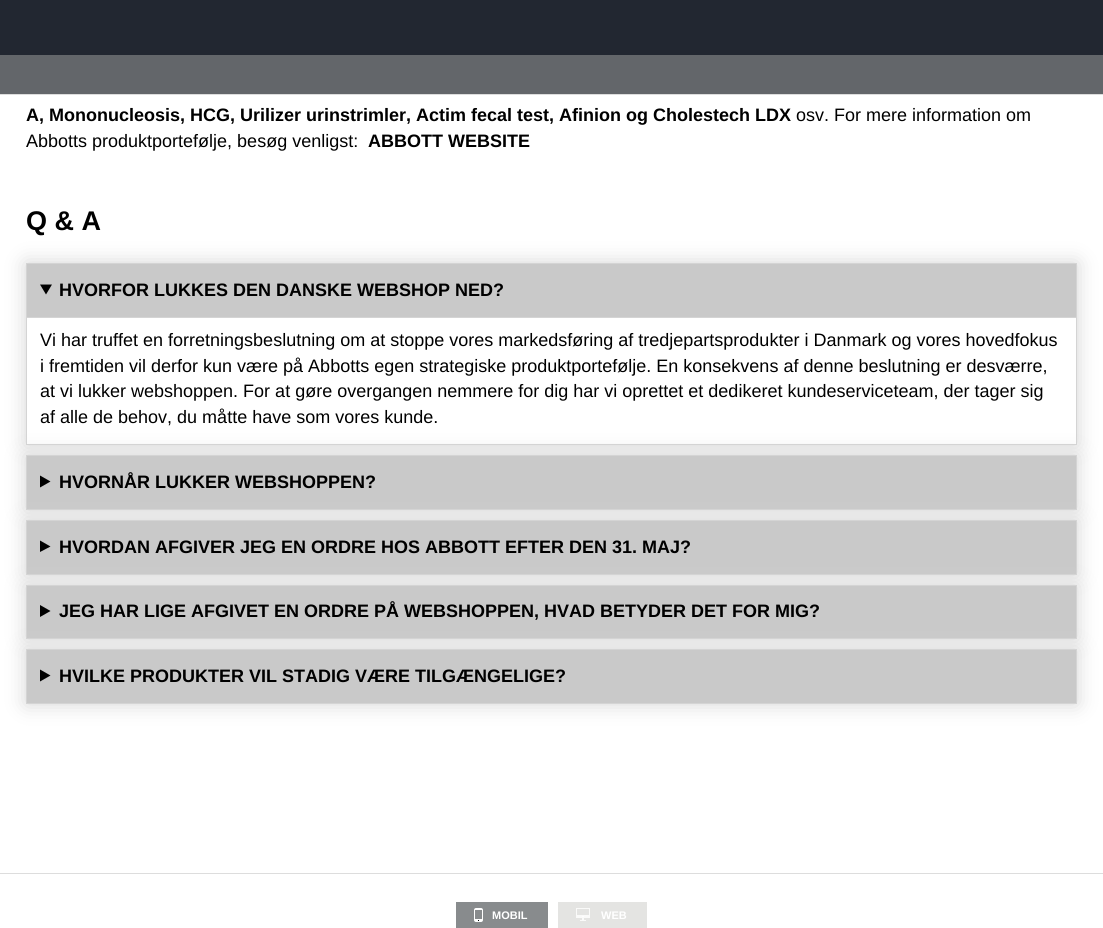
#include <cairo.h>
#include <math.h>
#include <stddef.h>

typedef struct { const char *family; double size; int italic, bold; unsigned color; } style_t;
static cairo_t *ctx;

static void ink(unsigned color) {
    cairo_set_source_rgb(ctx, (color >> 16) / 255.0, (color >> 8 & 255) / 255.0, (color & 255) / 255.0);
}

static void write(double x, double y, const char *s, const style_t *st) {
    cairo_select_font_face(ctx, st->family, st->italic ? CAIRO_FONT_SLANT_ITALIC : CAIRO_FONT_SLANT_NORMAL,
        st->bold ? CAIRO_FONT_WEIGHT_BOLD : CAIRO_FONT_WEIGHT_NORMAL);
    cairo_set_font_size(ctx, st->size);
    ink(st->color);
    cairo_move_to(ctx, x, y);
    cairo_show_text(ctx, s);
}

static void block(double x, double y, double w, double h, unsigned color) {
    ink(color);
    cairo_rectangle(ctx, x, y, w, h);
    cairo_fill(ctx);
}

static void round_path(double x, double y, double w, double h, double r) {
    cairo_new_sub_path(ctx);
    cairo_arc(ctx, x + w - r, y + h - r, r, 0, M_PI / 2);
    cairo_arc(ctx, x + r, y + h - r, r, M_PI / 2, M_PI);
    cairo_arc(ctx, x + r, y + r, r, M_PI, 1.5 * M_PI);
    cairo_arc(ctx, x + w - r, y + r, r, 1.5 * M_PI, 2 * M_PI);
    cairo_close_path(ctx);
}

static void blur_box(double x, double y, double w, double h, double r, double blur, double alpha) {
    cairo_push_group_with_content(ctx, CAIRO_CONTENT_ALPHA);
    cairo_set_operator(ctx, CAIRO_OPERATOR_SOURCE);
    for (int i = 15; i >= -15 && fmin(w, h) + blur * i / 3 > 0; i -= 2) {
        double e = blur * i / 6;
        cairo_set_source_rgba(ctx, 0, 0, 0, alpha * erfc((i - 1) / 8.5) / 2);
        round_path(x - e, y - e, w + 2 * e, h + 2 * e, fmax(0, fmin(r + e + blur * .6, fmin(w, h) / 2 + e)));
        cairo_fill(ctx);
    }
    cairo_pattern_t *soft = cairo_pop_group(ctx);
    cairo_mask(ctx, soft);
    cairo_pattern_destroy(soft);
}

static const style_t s1 = {"Liberation Sans", 18, 0, 1, 0x000000};
static const style_t s2 = {"Liberation Sans", 18, 0, 0, 0x000000};
static const style_t s3 = {"Liberation Sans", 27, 0, 1, 0x000000};
static const style_t s4 = {"Liberation Sans", 11, 0, 1, 0xffffff};

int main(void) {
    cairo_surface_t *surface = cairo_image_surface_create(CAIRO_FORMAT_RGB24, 1103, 928);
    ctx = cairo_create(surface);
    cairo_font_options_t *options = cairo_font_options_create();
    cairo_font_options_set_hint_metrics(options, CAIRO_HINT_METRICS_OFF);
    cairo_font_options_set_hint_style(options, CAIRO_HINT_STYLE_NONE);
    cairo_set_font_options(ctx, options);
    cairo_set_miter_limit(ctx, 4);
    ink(0xffffff);
    cairo_paint(ctx);
    block(0, 55, 1103, 39, 0x63666a);
    block(0, 94, 1103, 1, 0xdddddd);
    block(0, 0, 1103, 55, 0x222731);
    write(26, 121, "A, Mononucleosis, HCG, Urilizer urinstrimler, Actim fecal test, Afinion og Cholestech LDX", &s1);
    write(796, 121, "osv. For mere information om", &s2);
    write(26, 147, "Abbotts produktportefølje, besøg venligst:", &s2);
    write(368, 147, "ABBOTT WEBSITE", &s1);
    cairo_save(ctx);
    cairo_set_fill_rule(ctx, CAIRO_FILL_RULE_EVEN_ODD);
    cairo_new_path(ctx);
    cairo_move_to(ctx, 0, 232);
    cairo_line_to(ctx, 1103, 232);
    cairo_line_to(ctx, 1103, 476);
    cairo_line_to(ctx, 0, 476);
    cairo_close_path(ctx);
    cairo_move_to(ctx, 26, 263);
    cairo_line_to(ctx, 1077, 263);
    cairo_line_to(ctx, 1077, 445);
    cairo_line_to(ctx, 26, 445);
    cairo_close_path(ctx);
    cairo_clip(ctx);
    ink(0xd4d4d4);
    blur_box(26, 263, 1051, 182, 0, 10, 1);
    cairo_restore(ctx);
    write(26, 230, "Q & A", &s3);
    cairo_rectangle(ctx, 26.5, 263.5, 1050, 181);
    ink(0xd4d4d4);
    cairo_set_line_width(ctx, 1);
    cairo_stroke(ctx);
    block(27, 264, 1049, 53, 0xc9c9c9);
    block(27, 317, 1049, 1, 0xd4d4d4);
    ink(0x000000);
    cairo_new_path(ctx);
    cairo_move_to(ctx, 40, 284.5);
    cairo_line_to(ctx, 52, 284.5);
    cairo_line_to(ctx, 46, 294.5);
    cairo_close_path(ctx);
    cairo_fill(ctx);
    write(59, 296, "HVORFOR LUKKES DEN DANSKE WEBSHOP NED?", &s1);
    write(40, 346, "Vi har truffet en forretningsbeslutning om at stoppe vores markedsføring af tredjepartsprodukter i Danmark og vores hovedfokus", &s2);
    write(40, 372, "i fremtiden vil derfor kun være på Abbotts egen strategiske produktportefølje. En konsekvens af denne beslutning er desværre,", &s2);
    write(40, 397, "at vi lukker webshoppen. For at gøre overgangen nemmere for dig har vi oprettet et dedikeret kundeserviceteam, der tager sig", &s2);
    ink(0xd4d4d4);
    blur_box(26, 455, 1051, 55, 0, 10, 1);
    write(40, 423, "af alle de behov, du måtte have som vores kunde.", &s2);
    cairo_rectangle(ctx, 26.5, 455.5, 1050, 54);
    ink(0xd4d4d4);
    cairo_stroke(ctx);
    block(27, 456, 1049, 53, 0xc9c9c9);
    ink(0x000000);
    cairo_new_path(ctx);
    cairo_move_to(ctx, 40, 475.5);
    cairo_line_to(ctx, 50.5, 481.5);
    cairo_line_to(ctx, 40, 487.5);
    cairo_close_path(ctx);
    cairo_fill(ctx);
    write(59, 488, "HVORNÅR LUKKER WEBSHOPPEN?", &s1);
    ink(0xd4d4d4);
    blur_box(26, 520, 1051, 55, 0, 10, 1);
    cairo_rectangle(ctx, 26.5, 520.5, 1050, 54);
    ink(0xd4d4d4);
    cairo_stroke(ctx);
    block(27, 521, 1049, 53, 0xc9c9c9);
    ink(0x000000);
    cairo_new_path(ctx);
    cairo_move_to(ctx, 40, 540.5);
    cairo_line_to(ctx, 50.5, 546.5);
    cairo_line_to(ctx, 40, 552);
    cairo_close_path(ctx);
    cairo_fill(ctx);
    write(59, 553, "HVORDAN AFGIVER JEG EN ORDRE HOS ABBOTT EFTER DEN 31. MAJ?", &s1);
    ink(0xd4d4d4);
    blur_box(26, 585, 1051, 54, 0, 10, 1);
    cairo_rectangle(ctx, 26.5, 585.5, 1050, 53);
    ink(0xd4d4d4);
    cairo_stroke(ctx);
    block(27, 586, 1049, 52, 0xc9c9c9);
    ink(0x000000);
    cairo_new_path(ctx);
    cairo_move_to(ctx, 40, 605);
    cairo_line_to(ctx, 50.5, 611);
    cairo_line_to(ctx, 40, 617);
    cairo_close_path(ctx);
    cairo_fill(ctx);
    ink(0xd4d4d4);
    blur_box(26, 649, 1051, 55, 0, 10, 1);
    write(59, 617, "JEG HAR LIGE AFGIVET EN ORDRE PÅ WEBSHOPPEN, HVAD BETYDER DET FOR MIG?", &s1);
    cairo_rectangle(ctx, 26.5, 649.5, 1050, 54);
    ink(0xd4d4d4);
    cairo_stroke(ctx);
    block(27, 650, 1049, 53, 0xc9c9c9);
    ink(0x000000);
    cairo_new_path(ctx);
    cairo_move_to(ctx, 40, 669.5);
    cairo_line_to(ctx, 50.5, 675.5);
    cairo_line_to(ctx, 40, 681.5);
    cairo_close_path(ctx);
    cairo_fill(ctx);
    write(59, 682, "HVILKE PRODUKTER VIL STADIG VÆRE TILGÆNGELIGE?", &s1);
    block(0, 873, 1103, 1, 0xdddddd);
    block(456, 902, 92, 26, 0x888b8d);
    round_path(474.5, 908.5, 8, 13, 1.5);
    ink(0xffffff);
    cairo_stroke(ctx);
    block(475, 909, 7, 1, 0xffffff);
    block(475, 919, 7, 2, 0xffffff);
    write(492, 919, "MOBIL", &s4);
    block(478, 920, 1, 1, 0x000000);
    block(558, 902, 89, 26, 0xe4e4e2);
    block(576, 908, 14, 1, 0xfafaf9);
    block(589, 908, 1, 10, 0xfafaf9);
    block(576, 915, 14, 3, 0xfafaf9);
    block(576, 908, 1, 10, 0xfafaf9);
    block(582, 918, 2, 2, 0xfafaf9);
    write(601, 919, "WEB", &s4);
    block(580, 920, 6, 1, 0xfafaf9);
    block(582, 916, 2, 1, 0xfefefe);
    cairo_surface_write_to_png(surface, "screenshot.png");
    cairo_font_options_destroy(options);
    cairo_destroy(ctx);
    cairo_surface_destroy(surface);
    return 0;
}
